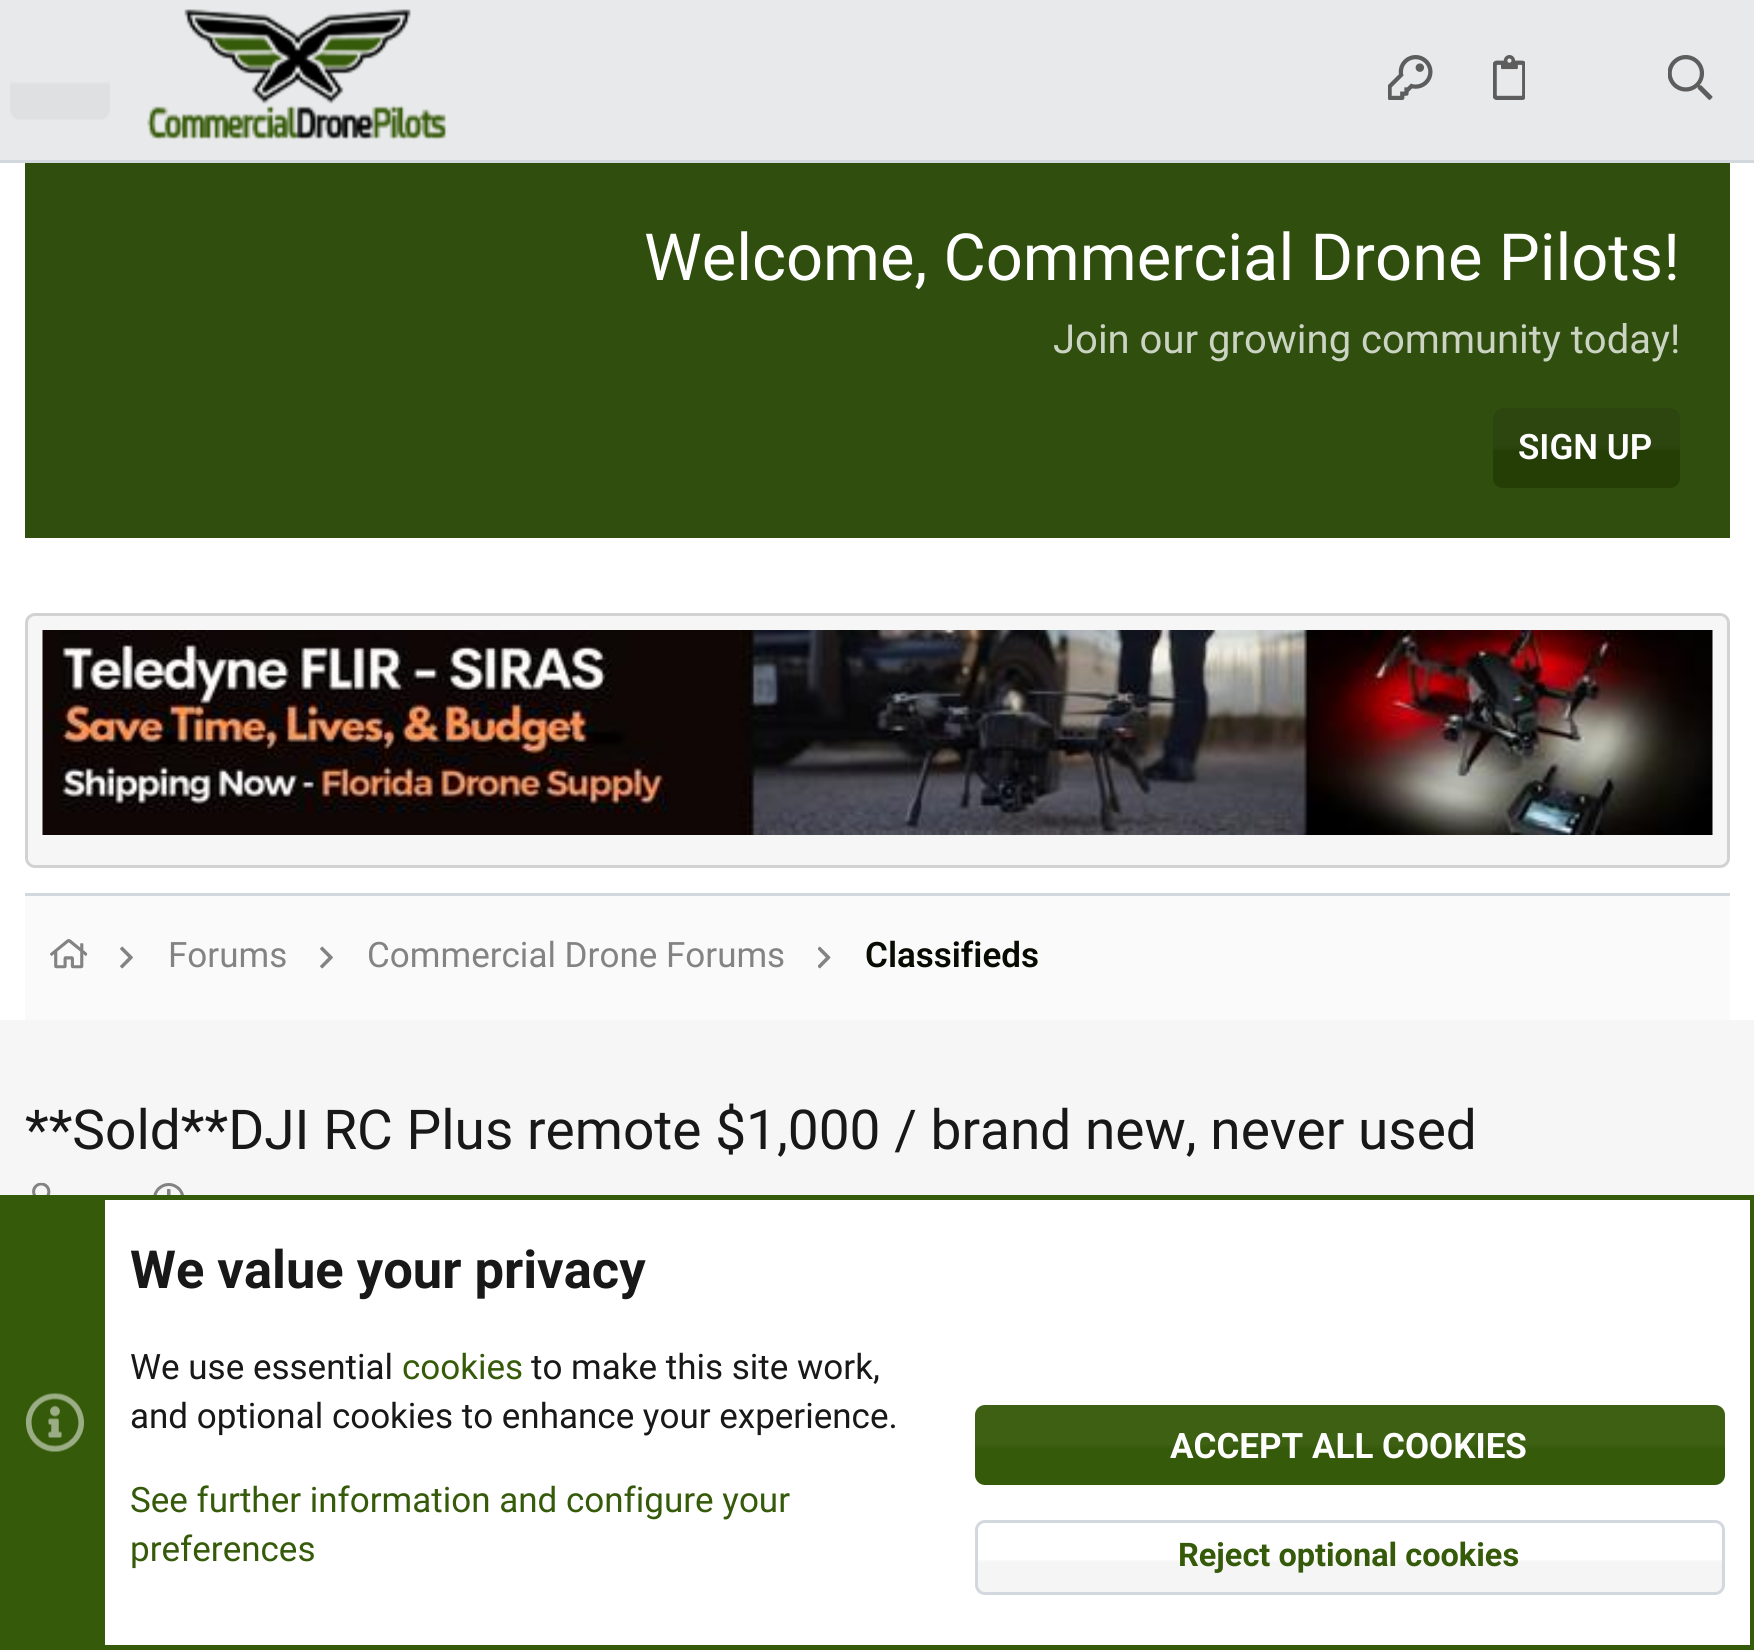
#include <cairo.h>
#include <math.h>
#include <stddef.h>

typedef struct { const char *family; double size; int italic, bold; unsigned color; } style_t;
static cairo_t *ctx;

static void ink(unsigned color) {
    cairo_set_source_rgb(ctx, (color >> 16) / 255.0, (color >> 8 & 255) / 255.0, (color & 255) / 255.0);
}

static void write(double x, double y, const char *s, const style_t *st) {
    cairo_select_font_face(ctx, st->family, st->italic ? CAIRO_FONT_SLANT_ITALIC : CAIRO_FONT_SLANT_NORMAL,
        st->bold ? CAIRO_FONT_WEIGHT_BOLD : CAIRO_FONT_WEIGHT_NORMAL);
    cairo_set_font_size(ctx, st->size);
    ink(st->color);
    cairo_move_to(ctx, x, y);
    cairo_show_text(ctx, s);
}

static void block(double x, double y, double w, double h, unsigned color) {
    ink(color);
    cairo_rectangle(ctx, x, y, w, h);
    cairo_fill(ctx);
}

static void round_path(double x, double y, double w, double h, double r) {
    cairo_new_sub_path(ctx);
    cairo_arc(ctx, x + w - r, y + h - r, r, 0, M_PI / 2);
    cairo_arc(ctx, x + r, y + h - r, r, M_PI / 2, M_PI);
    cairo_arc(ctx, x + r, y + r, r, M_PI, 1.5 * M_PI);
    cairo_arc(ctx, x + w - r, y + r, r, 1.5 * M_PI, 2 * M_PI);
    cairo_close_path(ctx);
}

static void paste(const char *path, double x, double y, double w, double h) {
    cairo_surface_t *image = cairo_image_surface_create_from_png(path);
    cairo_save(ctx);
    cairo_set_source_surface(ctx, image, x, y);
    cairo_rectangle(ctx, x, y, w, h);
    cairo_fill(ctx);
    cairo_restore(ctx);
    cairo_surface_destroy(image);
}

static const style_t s1 = {"Roboto", 65, 0, 0, 0xffffff};
static const style_t s2 = {"Roboto", 40, 0, 0, 0xcbd3c3};
static const style_t s3 = {"Roboto SemiBold", 35, 0, 0, 0xffffff};
static const style_t s4 = {"Roboto", 35, 0, 0, 0x838383};
static const style_t s5 = {"Roboto SemiBold", 35, 0, 0, 0x070b01};
static const style_t s6 = {"Roboto", 55, 0, 0, 0x181818};
static const style_t s7 = {"Roboto", 52.5, 0, 1, 0x181818};
static const style_t s8 = {"Roboto", 35, 0, 0, 0x181818};
static const style_t s9 = {"Roboto", 35, 0, 0, 0x355a09};
static const style_t s10 = {"Roboto", 35, 0, 1, 0xffffff};
static const style_t s11 = {"Roboto", 32.5, 0, 1, 0x355a09};

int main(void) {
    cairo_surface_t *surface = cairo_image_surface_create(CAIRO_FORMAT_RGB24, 1754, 1650);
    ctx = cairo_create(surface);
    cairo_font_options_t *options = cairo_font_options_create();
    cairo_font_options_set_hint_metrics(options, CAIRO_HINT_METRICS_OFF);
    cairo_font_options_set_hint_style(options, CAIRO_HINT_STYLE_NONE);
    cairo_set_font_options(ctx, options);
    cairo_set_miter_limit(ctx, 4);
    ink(0xffffff);
    cairo_paint(ctx);
    block(0, 0, 1754, 160, 0xe8e9ea);
    block(0, 160, 1754, 3, 0xd3d8df);
    paste("pic1.png", 10, 82, 100, 38);
    paste("pic2.png", 147, 9, 301, 131);
    paste("pic3.png", 1388, 55, 45, 45);
    paste("pic4.png", 1493, 55, 32, 45);
    paste("pic5.png", 1668, 55, 45, 45);
    block(25, 163, 1705, 375, 0x304e0e);
    write(644, 280, "Welcome, Commercial Drone Pilots!", &s1);
    write(1053, 353, "Join our growing community today!", &s2);
    ink(0x243e06);
    round_path(1493, 408, 187, 80, 10);
    cairo_fill(ctx);
    paste("pic6.png", 1493, 408, 187, 42);
    write(1518, 459, "SIGN UP", &s3);
    ink(0xf6f6f6);
    round_path(26.5, 614.5, 1702, 252, 8.5);
    cairo_fill_preserve(ctx);
    ink(0xd2d2d2);
    cairo_set_line_width(ctx, 3);
    cairo_stroke(ctx);
    paste("pic7.png", 42, 630, 1671, 205);
    block(25, 896, 1705, 124, 0xfafafa);
    block(25, 893, 1705, 3, 0xd3d8df);
    paste("pic8.png", 50, 939, 38, 30);
    paste("pic9.png", 120, 946, 13, 23);
    write(168, 967, "Forums", &s4);
    paste("pic9.png", 320, 946, 13, 23);
    write(367, 967, "Commercial Drone Forums", &s4);
    paste("pic10.png", 818, 946, 13, 23);
    write(865, 967, "Classifieds", &s5);
    block(0, 1020, 1754, 175, 0xf6f6f6);
    write(25, 1149, "**Sold**DJI RC Plus remote $1,000 / brand new, never used", &s6);
    paste("pic11.png", 32, 1182, 19, 13);
    paste("pic12.png", 153, 1183, 31, 12);
    cairo_rectangle(ctx, 2.5, 1197.5, 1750, 450);
    ink(0x355a09);
    cairo_set_line_width(ctx, 5);
    cairo_stroke(ctx);
    block(5, 1200, 100, 445, 0x355a09);
    paste("pic13.png", 25, 1393, 59, 59);
    write(130, 1288, "We value your privacy", &s7);
    write(130, 1379, "We use essential", &s8);
    write(402, 1379, "cookies", &s9);
    write(531, 1379, "to make this site work,", &s8);
    write(130, 1428, "and optional cookies to enhance your experience.", &s8);
    write(130, 1512, "See further information and configure your", &s9);
    write(130, 1561, "preferences", &s9);
    round_path(975, 1405, 750, 80, 10);
    cairo_fill(ctx);
    paste("pic14.png", 975, 1405, 750, 43);
    write(1170, 1458, "ACCEPT ALL COOKIES", &s10);
    paste("pic15.png", 975, 1560, 750, 35);
    round_path(976.5, 1521.5, 747, 72, 8.5);
    ink(0xd3d8df);
    cairo_set_line_width(ctx, 3);
    cairo_stroke(ctx);
    write(1178, 1566, "Reject optional cookies", &s11);
    cairo_surface_write_to_png(surface, "screenshot.png");
    cairo_font_options_destroy(options);
    cairo_destroy(ctx);
    cairo_surface_destroy(surface);
    return 0;
}
